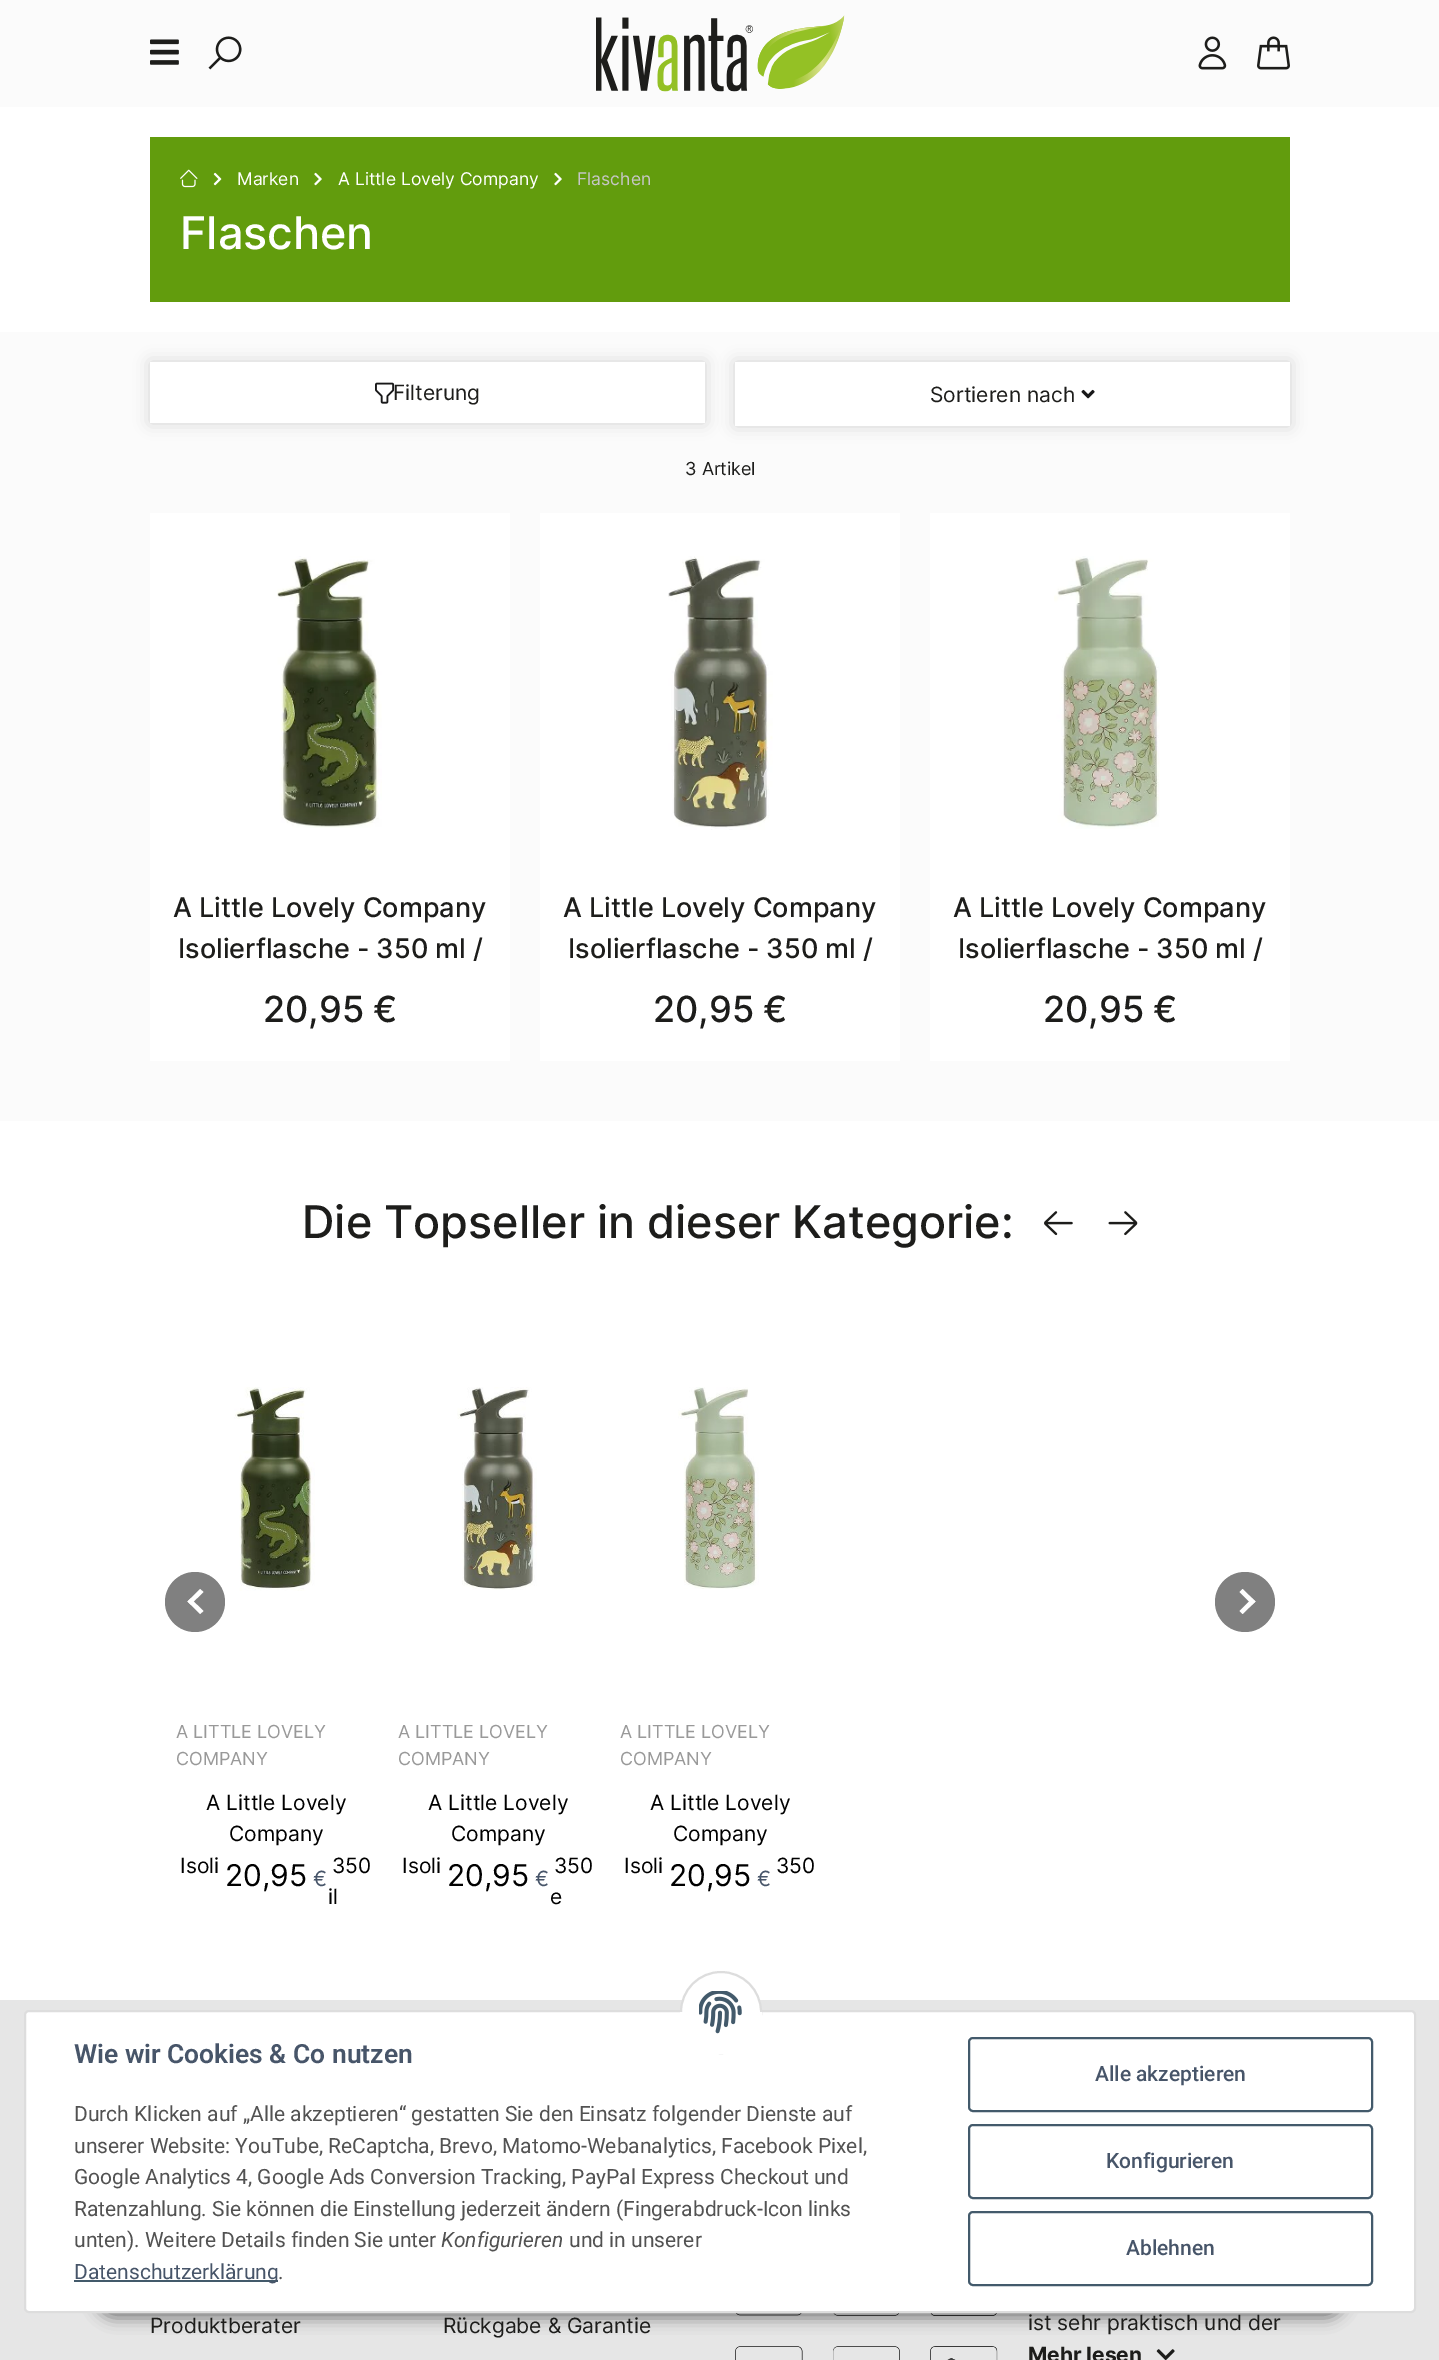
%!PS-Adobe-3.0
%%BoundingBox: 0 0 1439 2360
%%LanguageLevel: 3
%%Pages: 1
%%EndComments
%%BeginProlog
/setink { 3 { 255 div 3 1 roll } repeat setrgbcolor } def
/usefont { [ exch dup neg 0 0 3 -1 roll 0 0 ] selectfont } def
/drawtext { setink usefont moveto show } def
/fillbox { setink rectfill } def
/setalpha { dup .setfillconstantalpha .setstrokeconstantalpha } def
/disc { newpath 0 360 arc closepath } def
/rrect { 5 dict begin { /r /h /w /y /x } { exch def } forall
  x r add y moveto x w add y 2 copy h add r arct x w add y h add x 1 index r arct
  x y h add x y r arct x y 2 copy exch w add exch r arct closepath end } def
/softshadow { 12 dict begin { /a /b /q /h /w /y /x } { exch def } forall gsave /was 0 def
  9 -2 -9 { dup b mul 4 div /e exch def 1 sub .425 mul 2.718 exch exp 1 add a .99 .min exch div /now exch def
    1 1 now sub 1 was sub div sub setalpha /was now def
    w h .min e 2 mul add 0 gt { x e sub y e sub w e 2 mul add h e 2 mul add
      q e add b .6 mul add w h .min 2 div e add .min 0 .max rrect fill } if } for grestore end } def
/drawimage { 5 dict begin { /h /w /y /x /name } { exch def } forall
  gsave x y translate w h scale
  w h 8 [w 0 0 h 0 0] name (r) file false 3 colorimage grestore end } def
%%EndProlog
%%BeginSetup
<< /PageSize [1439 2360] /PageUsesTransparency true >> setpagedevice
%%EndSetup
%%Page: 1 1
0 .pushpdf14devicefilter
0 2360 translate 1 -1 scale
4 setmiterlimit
0 0 1439 2360 255 255 255 fillbox
0 0 1439 107 251 251 251 fillbox
(assets/img1.rgb) 150 39 29 26 drawimage
(assets/img2.rgb) 208 36 34 34 drawimage
(assets/img3.rgb) 596 15 249 77 drawimage
(assets/img4.rgb) 1198 36 29 34 drawimage
(assets/img5.rgb) 1257 36 33 34 drawimage
150 137 1140 165 98 156 13 fillbox
(assets/img6.rgb) 180 169 18 19 drawimage
(assets/img7.rgb) 213 172 9 14 drawimage
(Marken) 237 185 /Inter-Regular 17.5 255 255 255 drawtext
(assets/img8.rgb) 314 172 8 14 drawimage
(A Little Lovely Company) 338 185 /Inter-Regular 17.5 255 255 255 drawtext
(assets/img8.rgb) 554 172 8 14 drawimage
(Flaschen) 577 185 /Inter-Regular 17.5 198 198 198 drawtext
(Flaschen) 180 249 /Inter-Medium 45 255 255 255 drawtext
0 332 1439 789 251 251 251 fillbox
0 0 0 setink
150 362 555 61 0 8 0.16 softshadow
150 362 555 61 255 255 255 fillbox
(assets/img9.rgb) 375 382 20 22 drawimage
(Filterung) 393 400 /Inter-Regular 21 29 29 27 drawtext
0 0 0 setink
735 362 555 64 0 8 0.16 softshadow
735 362 555 64 255 255 255 fillbox
(Sortieren nach) 930 402 /Inter-Regular 21 29 29 27 drawtext
(assets/img10.rgb) 1081 389 14 10 drawimage
(3 Artikel) 685 475 /Inter-Regular 18 29 29 27 drawtext
150 513 360 548 255 255 255 fillbox
(assets/img11.rgb) 277 556 105 272 drawimage
(A Little Lovely Company) 173 917 /Inter-Medium 27 29 29 27 drawtext
(Isolierflasche - 350 ml /) 178 958 /Inter-Medium 27 29 29 27 drawtext
(20,95 €) 263 1022 /Inter-Medium 36 29 29 27 drawtext
540 513 360 548 255 255 255 fillbox
(assets/img12.rgb) 668 556 105 274 drawimage
(A Little Lovely Company) 563 917 /Inter-Medium 27 29 29 27 drawtext
(Isolierflasche - 350 ml /) 568 958 /Inter-Medium 27 29 29 27 drawtext
(20,95 €) 653 1022 /Inter-Medium 36 29 29 27 drawtext
930 513 360 548 255 255 255 fillbox
(assets/img13.rgb) 1054 556 106 273 drawimage
(A Little Lovely Company) 953 917 /Inter-Medium 27 29 29 27 drawtext
(Isolierflasche - 350 ml /) 958 958 /Inter-Medium 27 29 29 27 drawtext
(20,95 €) 1043 1022 /Inter-Medium 36 29 29 27 drawtext
(Die Topseller in dieser Kategorie:) 302 1238 /Inter-Medium 45 29 29 27 drawtext
(assets/img14.rgb) 1044 1211 29 25 drawimage
(assets/img15.rgb) 1108 1211 30 25 drawimage
128 128 128 setink
195 1602 30 disc fill
255 255 255 setink
203.5 1611 moveto 200 1614 lineto 187.5 1601.5 lineto 190.5 1598.5 lineto closepath fill
203.5 1592 moveto 190.5 1604.5 lineto 187.5 1601.5 lineto 200 1589 lineto closepath fill
128 128 128 setink
1245 1602 30 disc fill
255 255 255 setink
1239.5 1592 moveto 1242.5 1589 lineto 1255.5 1601.5 lineto 1252 1604.5 lineto closepath fill
1239.5 1611 moveto 1252 1598.5 lineto 1255.5 1601.5 lineto 1242.5 1614 lineto closepath fill
(assets/img16.rgb) 234 1387 81 204 drawimage
(A LITTLE LOVELY) 176 1738 /Inter-Regular 18 153 153 153 drawtext
(COMPANY) 176 1765 /Inter-Regular 18 153 153 153 drawtext
(A Little Lovely) 206 1810 /Inter-Regular 21 0 0 0 drawtext
(Company) 229 1841 /Inter-Regular 21 0 0 0 drawtext
(Isoli) 180 1873 /Inter-Regular 21 0 0 0 drawtext
(350) 332 1873 /Inter-Regular 21 0 0 0 drawtext
(il) 328 1904 /Inter-Regular 21 0 0 0 drawtext
(20,95) 225 1886 /Inter-Regular 30 0 0 0 drawtext
(€) 313 1886 /Inter-Regular 21 71 85 105 drawtext
(assets/img17.rgb) 457 1387 80 203 drawimage
(A LITTLE LOVELY) 398 1738 /Inter-Regular 18 153 153 153 drawtext
(COMPANY) 398 1765 /Inter-Regular 18 153 153 153 drawtext
(A Little Lovely) 428 1810 /Inter-Regular 21 0 0 0 drawtext
(Company) 451 1841 /Inter-Regular 21 0 0 0 drawtext
(Isoli) 402 1873 /Inter-Regular 21 0 0 0 drawtext
(350) 554 1873 /Inter-Regular 21 0 0 0 drawtext
(e) 550 1904 /Inter-Regular 21 0 0 0 drawtext
(20,95) 447 1886 /Inter-Regular 30 0 0 0 drawtext
(€) 535 1886 /Inter-Regular 21 71 85 105 drawtext
(assets/img18.rgb) 678 1387 81 202 drawimage
(A LITTLE LOVELY) 620 1738 /Inter-Regular 18 153 153 153 drawtext
(COMPANY) 620 1765 /Inter-Regular 18 153 153 153 drawtext
(A Little Lovely) 650 1810 /Inter-Regular 21 0 0 0 drawtext
(Company) 673 1841 /Inter-Regular 21 0 0 0 drawtext
(Isoli) 624 1873 /Inter-Regular 21 0 0 0 drawtext
(350) 776 1873 /Inter-Regular 21 0 0 0 drawtext
(20,95) 669 1886 /Inter-Regular 30 0 0 0 drawtext
(€) 757 1886 /Inter-Regular 21 71 85 105 drawtext
0 2000 1439 360 230 230 230 fillbox
(assets/img20.rgb) 736 2313 66 3 drawimage
(assets/img21.rgb) 833 2313 67 3 drawimage
(assets/img22.rgb) 930 2313 67 3 drawimage
0 0 0 setink
95 2270 1251 48 24 7.5 0.45 softshadow
255 255 255 setink
25 2011 1390 301 4 rrect gsave fill grestore
221 221 221 setink
2 setlinewidth
stroke
255 255 255 setink
681 1972 80 81 40 rrect gsave fill grestore
221 221 221 setink
stroke
680 2012 82 42 255 255 255 fillbox
(assets/img19.rgb) 699 1991 43 43 drawimage
(Wie wir Cookies & Co nutzen) 74 2063 /Roboto-SemiBold 26.4 71 85 105 drawtext
(Durch Klicken auf „Alle akzeptieren“ gestatten Sie den Einsatz folgender Dienste auf) 74 2121 /Roboto-Regular 21 82 82 82 drawtext
(unserer Website: YouTube, ReCaptcha, Brevo, Matomo-Webanalytics, Facebook Pixel,) 74 2153 /Roboto-Regular 21 82 82 82 drawtext
(Google Analytics 4, Google Ads Conversion Tracking, PayPal Express Checkout und) 74 2184 /Roboto-Regular 21 82 82 82 drawtext
(Ratenzahlung. Sie können die Einstellung jederzeit ändern \(Fingerabdruck-Icon links) 74 2216 /Roboto-Regular 21 82 82 82 drawtext
(unten\). Weitere Details finden Sie unter) 74 2247 /Roboto-Regular 21 82 82 82 drawtext
(Konfigurieren) 441 2247 /Roboto-Italic 21 82 82 82 drawtext
(und in unserer) 569 2247 /Roboto-Regular 21 82 82 82 drawtext
74 2280 204 2 67 90 107 fillbox
(Datenschutzerklärung) 74 2279 /Roboto-Regular 21 71 85 105 drawtext
(.) 278 2279 /Roboto-Regular 21 82 82 82 drawtext
67 90 107 setink
969 2038 403 73 4 rrect stroke
(Alle akzeptieren) 1095 2081 /Roboto-Medium 21 71 85 105 drawtext
67 90 107 setink
969 2125 403 73 4 rrect stroke
(Konfigurieren) 1106 2168 /Roboto-Medium 21 71 85 105 drawtext
67 90 107 setink
969 2212 403 73 4 rrect stroke
(Ablehnen) 1126 2255 /Roboto-Medium 21 71 85 105 drawtext
(Produktberater) 150 2333 /Inter-Regular 21 29 29 27 drawtext
(Rückgabe & Garantie) 443 2333 /Inter-Regular 21 29 29 27 drawtext
(assets/img23.rgb) 735 2346 68 14 drawimage
(assets/img24.rgb) 833 2346 67 14 drawimage
(assets/img25.rgb) 930 2346 68 14 drawimage
(ist sehr praktisch und der) 1028 2330 /Inter-Regular 21 29 29 27 drawtext
(Mehr lesen) 1028 2362 /Inter-Bold 21 29 29 27 drawtext
(assets/img26.rgb) 1156 2349 19 11 drawimage
.poppdf14devicefilter showpage
%%EOF
